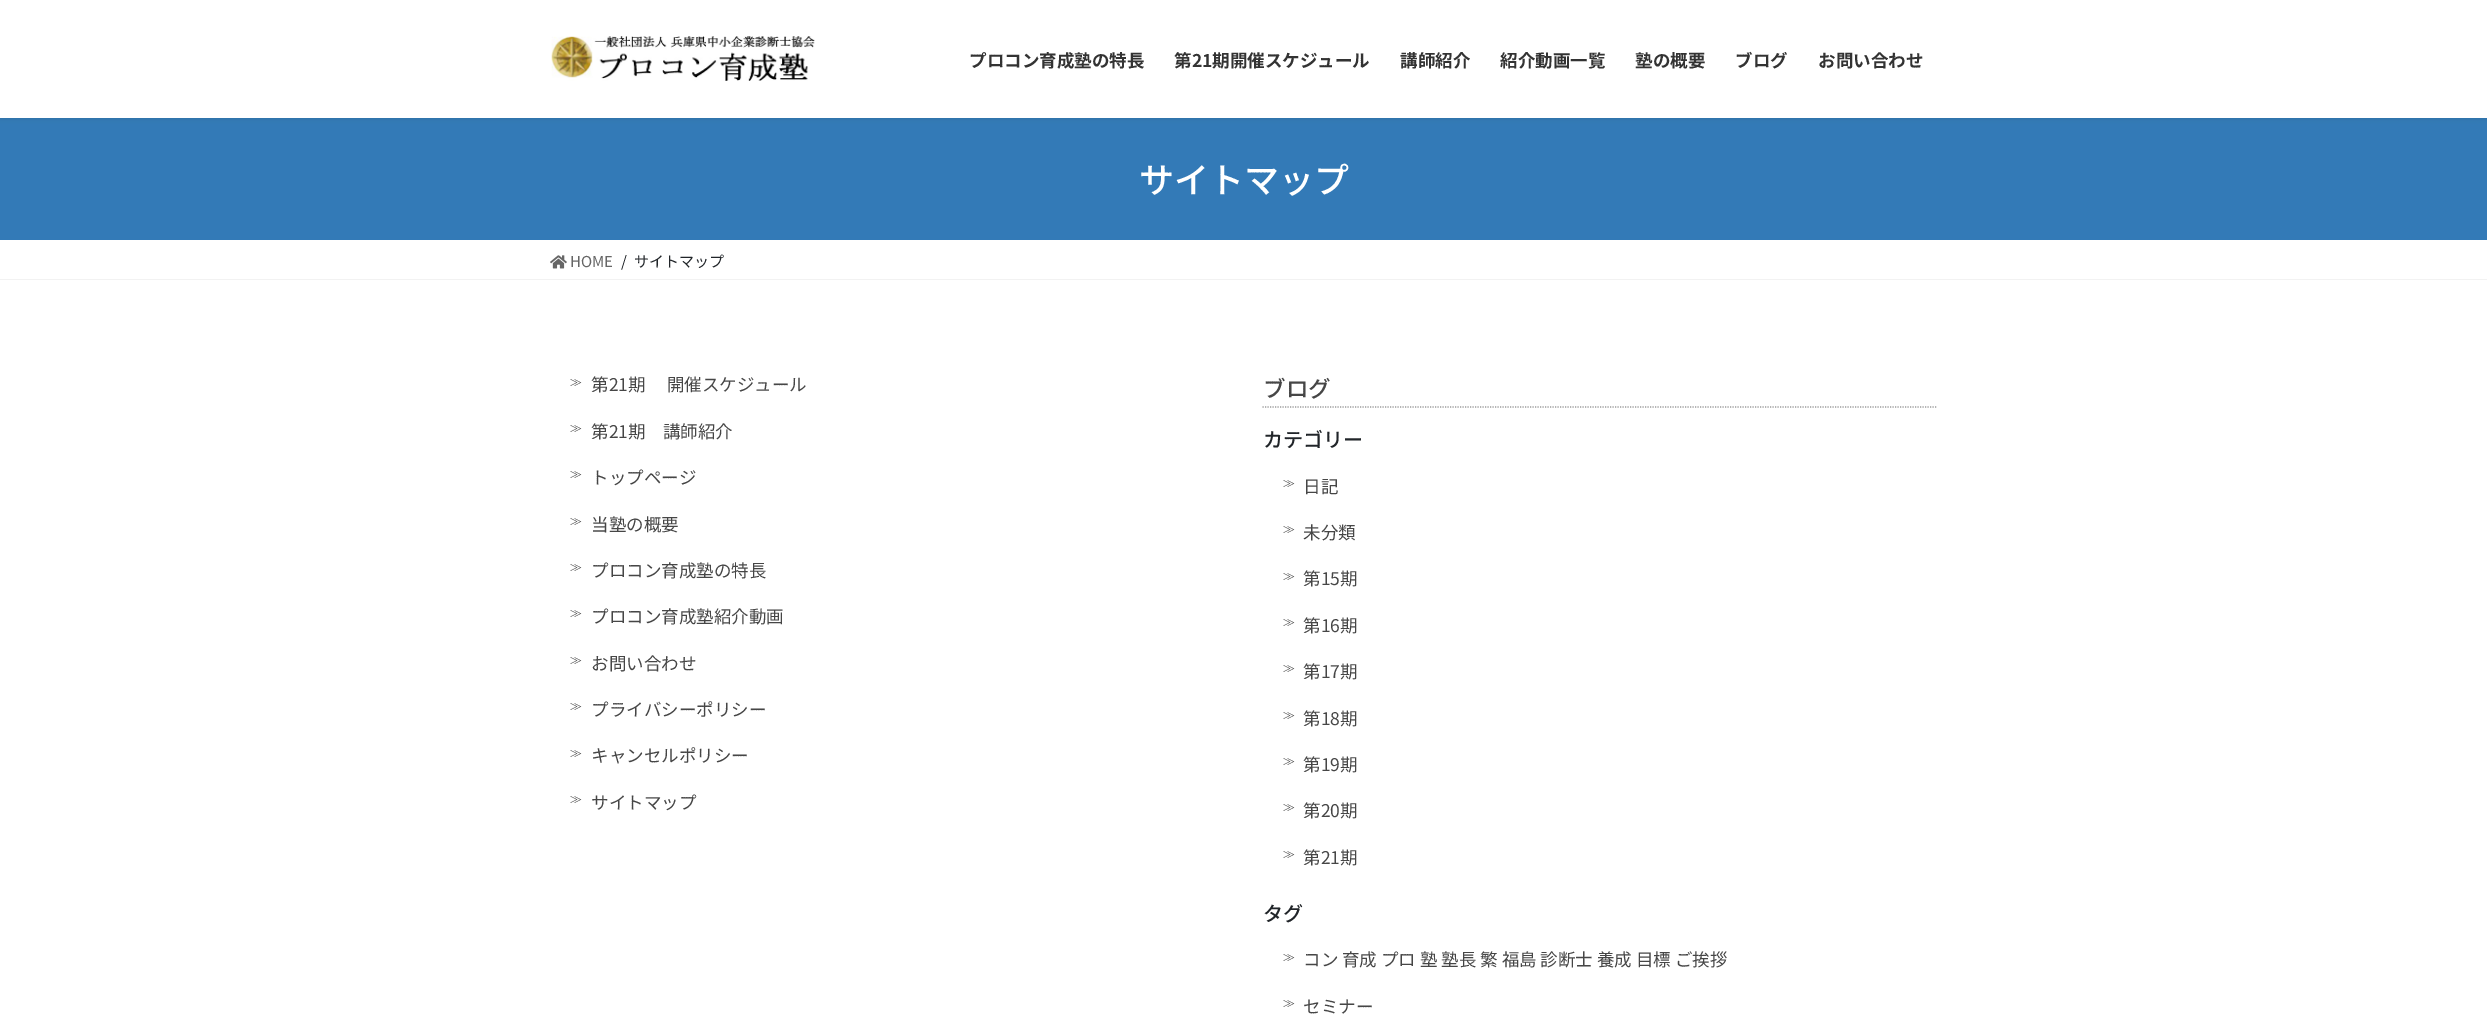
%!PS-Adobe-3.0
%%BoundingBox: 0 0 2487 1017
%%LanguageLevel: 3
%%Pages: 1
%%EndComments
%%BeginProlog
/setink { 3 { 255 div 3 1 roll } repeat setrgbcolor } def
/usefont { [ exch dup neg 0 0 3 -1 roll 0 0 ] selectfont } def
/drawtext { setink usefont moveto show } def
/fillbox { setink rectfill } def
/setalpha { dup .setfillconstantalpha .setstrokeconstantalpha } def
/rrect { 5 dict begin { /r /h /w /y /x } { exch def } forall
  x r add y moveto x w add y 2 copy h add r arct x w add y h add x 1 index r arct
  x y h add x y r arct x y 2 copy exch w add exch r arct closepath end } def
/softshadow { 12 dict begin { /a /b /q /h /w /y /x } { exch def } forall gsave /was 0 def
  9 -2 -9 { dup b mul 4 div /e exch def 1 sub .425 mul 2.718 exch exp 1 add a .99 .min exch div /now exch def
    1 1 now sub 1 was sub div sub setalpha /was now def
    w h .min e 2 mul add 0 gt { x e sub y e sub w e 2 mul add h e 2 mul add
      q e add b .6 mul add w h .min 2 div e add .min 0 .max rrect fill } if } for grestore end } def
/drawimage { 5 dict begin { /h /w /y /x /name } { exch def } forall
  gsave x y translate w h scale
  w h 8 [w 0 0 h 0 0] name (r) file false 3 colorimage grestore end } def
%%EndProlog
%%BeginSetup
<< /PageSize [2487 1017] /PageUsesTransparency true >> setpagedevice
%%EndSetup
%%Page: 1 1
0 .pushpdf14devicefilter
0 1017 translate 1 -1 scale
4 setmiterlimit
0 0 2487 1017 255 255 255 fillbox
0 118 2487 122 51 122 183 fillbox
0 0 0 setink
0 1 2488 118 0 2 0.1 softshadow
0 0 2487 118 255 255 255 fillbox
(assets/img1.rgb) 551 36 264 45 drawimage
(プロコン育成塾の特長) 969 67 /NotoSansJP-Bold 17.5 51 51 51 drawtext
(第21期開催スケジュール) 1174 67 /NotoSansJP-Bold 17.5 51 51 51 drawtext
(講師紹介) 1400 67 /NotoSansJP-Bold 17.5 51 51 51 drawtext
(紹介動画一覧) 1500 67 /NotoSansJP-Bold 17.5 51 51 51 drawtext
(塾の概要) 1635 67 /NotoSansJP-Bold 17.5 51 51 51 drawtext
(ブログ) 1735 67 /NotoSansJP-Bold 17.5 51 51 51 drawtext
(お問い合わせ) 1818 67 /NotoSansJP-Bold 17.5 51 51 51 drawtext
(サイトマップ) 1139 193 /NotoSansJP-Medium 35 255 255 255 drawtext
0 279 2487 1 242 242 242 fillbox
(assets/img2.rgb) 550 255 17 14 drawimage
(HOME) 570 267 /NotoSansJP-Regular 15 102 102 102 drawtext
(/) 621 267 /NotoSansJP-Regular 15 33 37 41 drawtext
(サイトマップ) 634 267 /NotoSansJP-Regular 15 33 37 41 drawtext
(≫) 570 386 /WenQuanYiZenHei-Medium 12 70 70 70 drawtext
(第21期　 開催スケジュール) 591 391 /NotoSansJP-Regular 17.5 70 70 70 drawtext
(≫) 570 432 /WenQuanYiZenHei-Medium 12 70 70 70 drawtext
(第21期　講師紹介) 591 438 /NotoSansJP-Regular 17.5 70 70 70 drawtext
(≫) 570 478 /WenQuanYiZenHei-Medium 12 70 70 70 drawtext
(トップページ) 591 484 /NotoSansJP-Regular 17.5 70 70 70 drawtext
(≫) 570 525 /WenQuanYiZenHei-Medium 12 70 70 70 drawtext
(当塾の概要) 591 531 /NotoSansJP-Regular 17.5 70 70 70 drawtext
(≫) 570 571 /WenQuanYiZenHei-Medium 12 70 70 70 drawtext
(プロコン育成塾の特長) 591 577 /NotoSansJP-Regular 17.5 70 70 70 drawtext
(≫) 570 617 /WenQuanYiZenHei-Medium 12 70 70 70 drawtext
(プロコン育成塾紹介動画) 591 623 /NotoSansJP-Regular 17.5 70 70 70 drawtext
(≫) 570 664 /WenQuanYiZenHei-Medium 12 70 70 70 drawtext
(お問い合わせ) 591 670 /NotoSansJP-Regular 17.5 70 70 70 drawtext
(≫) 570 710 /WenQuanYiZenHei-Medium 12 70 70 70 drawtext
(プライバシーポリシー) 591 716 /NotoSansJP-Regular 17.5 70 70 70 drawtext
(≫) 570 757 /WenQuanYiZenHei-Medium 12 70 70 70 drawtext
(キャンセルポリシー) 591 762 /NotoSansJP-Regular 17.5 70 70 70 drawtext
(≫) 570 803 /WenQuanYiZenHei-Medium 12 70 70 70 drawtext
(サイトマップ) 591 809 /NotoSansJP-Regular 17.5 70 70 70 drawtext
153 153 153 setink
1.2 setlinewidth
[1.25 1.25] 0 setdash
1262.5 407 moveto 1937.5 407 lineto stroke
(ブログ) 1263 397 /NotoSansJP-Medium 22.5 70 70 70 drawtext
(カテゴリー) 1263 447 /NotoSansJP-Medium 20 33 37 41 drawtext
(≫) 1283 487 /WenQuanYiZenHei-Medium 12 70 70 70 drawtext
(日記) 1303 493 /NotoSansJP-Regular 17.5 70 70 70 drawtext
(≫) 1283 533 /WenQuanYiZenHei-Medium 12 70 70 70 drawtext
(未分類) 1303 539 /NotoSansJP-Regular 17.5 70 70 70 drawtext
(≫) 1283 580 /WenQuanYiZenHei-Medium 12 70 70 70 drawtext
(第15期) 1303 585 /NotoSansJP-Regular 17.5 70 70 70 drawtext
(≫) 1283 626 /WenQuanYiZenHei-Medium 12 70 70 70 drawtext
(第16期) 1303 632 /NotoSansJP-Regular 17.5 70 70 70 drawtext
(≫) 1283 672 /WenQuanYiZenHei-Medium 12 70 70 70 drawtext
(第17期) 1303 678 /NotoSansJP-Regular 17.5 70 70 70 drawtext
(≫) 1283 719 /WenQuanYiZenHei-Medium 12 70 70 70 drawtext
(第18期) 1303 725 /NotoSansJP-Regular 17.5 70 70 70 drawtext
(≫) 1283 765 /WenQuanYiZenHei-Medium 12 70 70 70 drawtext
(第19期) 1303 771 /NotoSansJP-Regular 17.5 70 70 70 drawtext
(≫) 1283 811 /WenQuanYiZenHei-Medium 12 70 70 70 drawtext
(第20期) 1303 817 /NotoSansJP-Regular 17.5 70 70 70 drawtext
(≫) 1283 858 /WenQuanYiZenHei-Medium 12 70 70 70 drawtext
(第21期) 1303 864 /NotoSansJP-Regular 17.5 70 70 70 drawtext
(タグ) 1263 921 /NotoSansJP-Medium 20 33 37 41 drawtext
(≫) 1283 961 /WenQuanYiZenHei-Medium 12 70 70 70 drawtext
(コン 育成 プロ 塾 塾長 繁 福島 診断士 養成 目標 ご挨拶) 1303 966 /NotoSansJP-Regular 17.5 70 70 70 drawtext
(≫) 1283 1007 /WenQuanYiZenHei-Medium 12 70 70 70 drawtext
(セミナー) 1303 1013 /NotoSansJP-Regular 17.5 70 70 70 drawtext
.poppdf14devicefilter showpage
%%EOF
